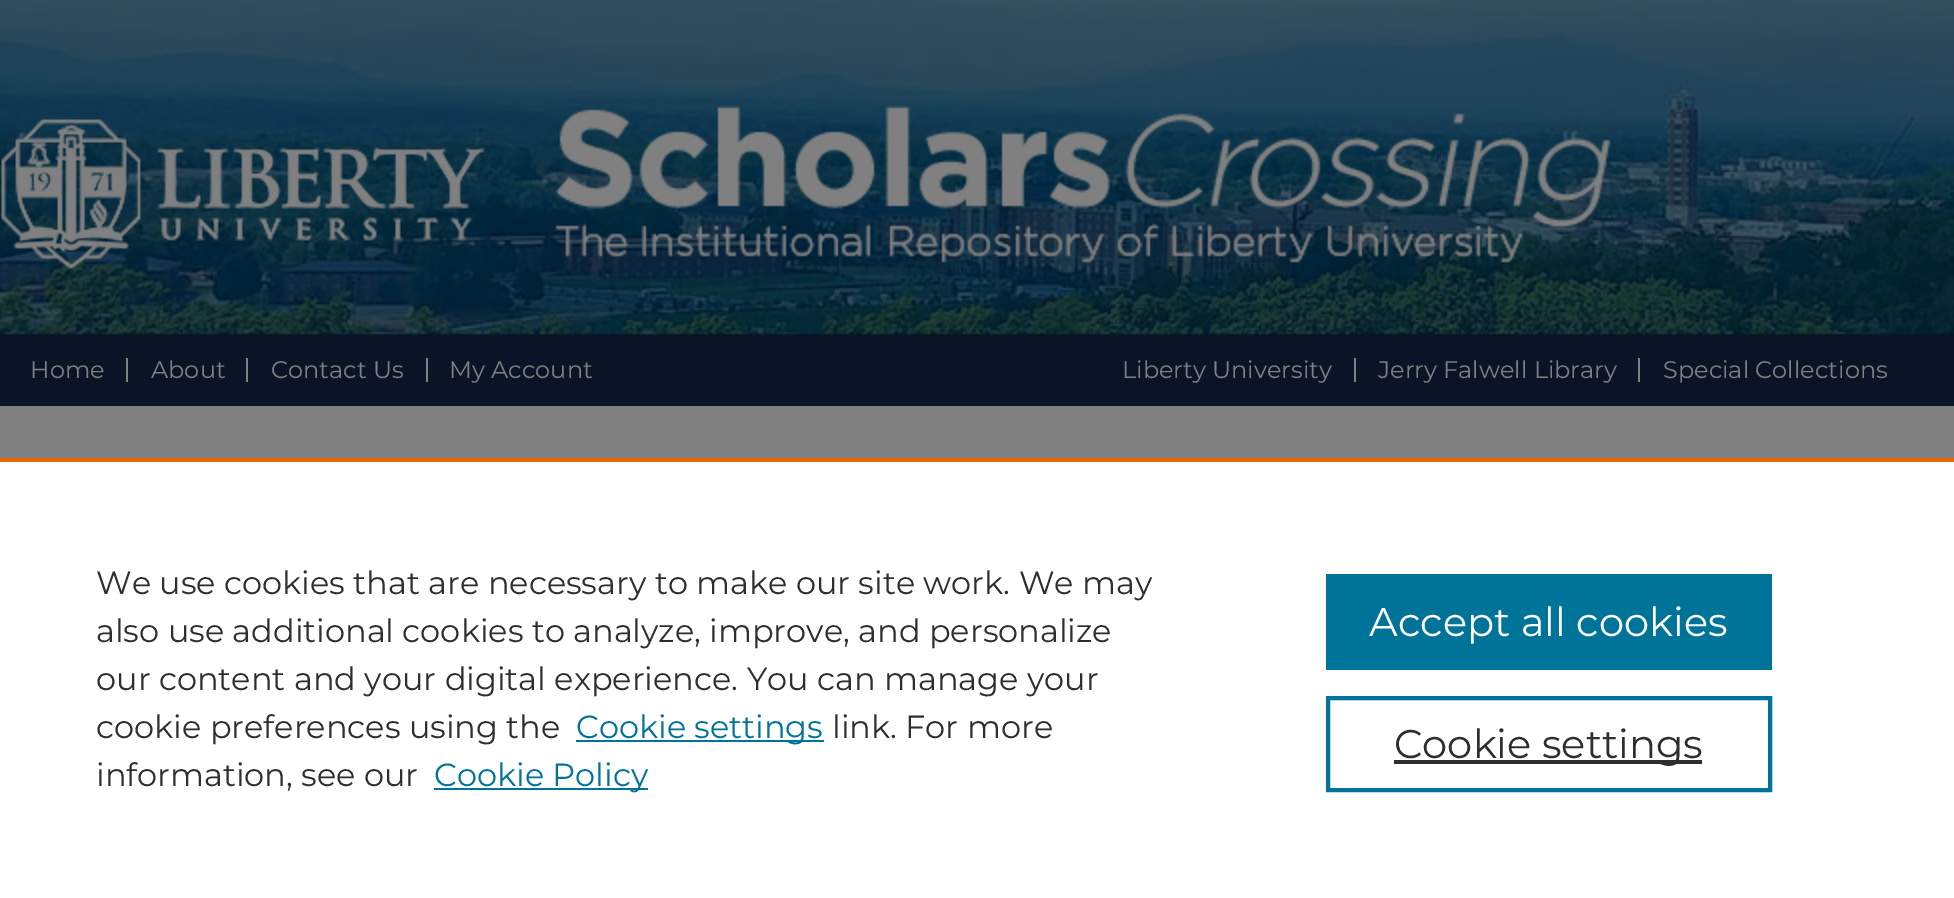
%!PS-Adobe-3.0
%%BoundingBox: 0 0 1954 898
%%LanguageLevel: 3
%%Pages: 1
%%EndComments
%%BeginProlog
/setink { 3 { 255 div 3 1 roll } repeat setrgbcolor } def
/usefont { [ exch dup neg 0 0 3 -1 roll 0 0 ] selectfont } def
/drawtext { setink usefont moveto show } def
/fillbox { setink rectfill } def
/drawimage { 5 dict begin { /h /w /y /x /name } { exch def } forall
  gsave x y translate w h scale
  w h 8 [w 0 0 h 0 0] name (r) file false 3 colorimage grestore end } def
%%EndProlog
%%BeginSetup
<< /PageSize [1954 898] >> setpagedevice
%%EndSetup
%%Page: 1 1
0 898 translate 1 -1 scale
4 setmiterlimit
0 0 1954 898 128 128 128 fillbox
(assets/img1.rgb) 0 0 1954 406 drawimage
(assets/img2.rgb) 1 105 1610 164 drawimage
(assets/img3.rgb) 1 119 484 150 drawimage
126 358 2 24 128 128 128 fillbox
(Home) 30 378 /Montserrat-Regular 24 128 128 128 drawtext
246 358 2 24 128 128 128 fillbox
(About) 151 378 /Montserrat-Regular 24 128 128 128 drawtext
426 358 2 24 128 128 128 fillbox
(Contact Us) 271 378 /Montserrat-Regular 24 128 128 128 drawtext
(My Account) 449 378 /Montserrat-Regular 24 128 128 128 drawtext
1354 358 2 24 128 128 128 fillbox
(Liberty University) 1122 378 /Montserrat-Regular 24 128 128 128 drawtext
1638 358 2 24 128 128 128 fillbox
(Jerry Falwell Library) 1378 378 /Montserrat-Regular 24 128 128 128 drawtext
(Special Collections) 1663 378 /Montserrat-Regular 24 128 128 128 drawtext
0 462 1954 436 255 255 255 fillbox
0 458 1954 4 235 101 0 fillbox
(We use cookies that are necessary to make our site work. We may) 96 594 /Montserrat-Regular 32 46 46 46 drawtext
(also use additional cookies to analyze, improve, and personalize) 96 642 /Montserrat-Regular 32 46 46 46 drawtext
(our content and your digital experience. You can manage your) 96 690 /Montserrat-Regular 32 46 46 46 drawtext
(cookie preferences using the) 96 738 /Montserrat-Regular 32 46 46 46 drawtext
576 740 248 2 0 115 152 fillbox
(Cookie settings) 576 738 /Montserrat-Regular 32 0 115 152 drawtext
(link. For more) 832 738 /Montserrat-Regular 32 46 46 46 drawtext
(information, see our) 96 786 /Montserrat-Regular 32 46 46 46 drawtext
434 788 214 2 0 115 152 fillbox
(Cookie Policy) 434 786 /Montserrat-Regular 32 0 115 152 drawtext
1326 574 446 96 0 115 152 fillbox
(Accept all cookies) 1369 636 /Montserrat-Regular 40 255 255 255 drawtext
0 115 152 setink
4 setlinewidth
1328 698 442 92 rectstroke
1394 760 308 4 46 46 46 fillbox
(Cookie settings) 1394 758 /Montserrat-Regular 40 46 46 46 drawtext
showpage
%%EOF
